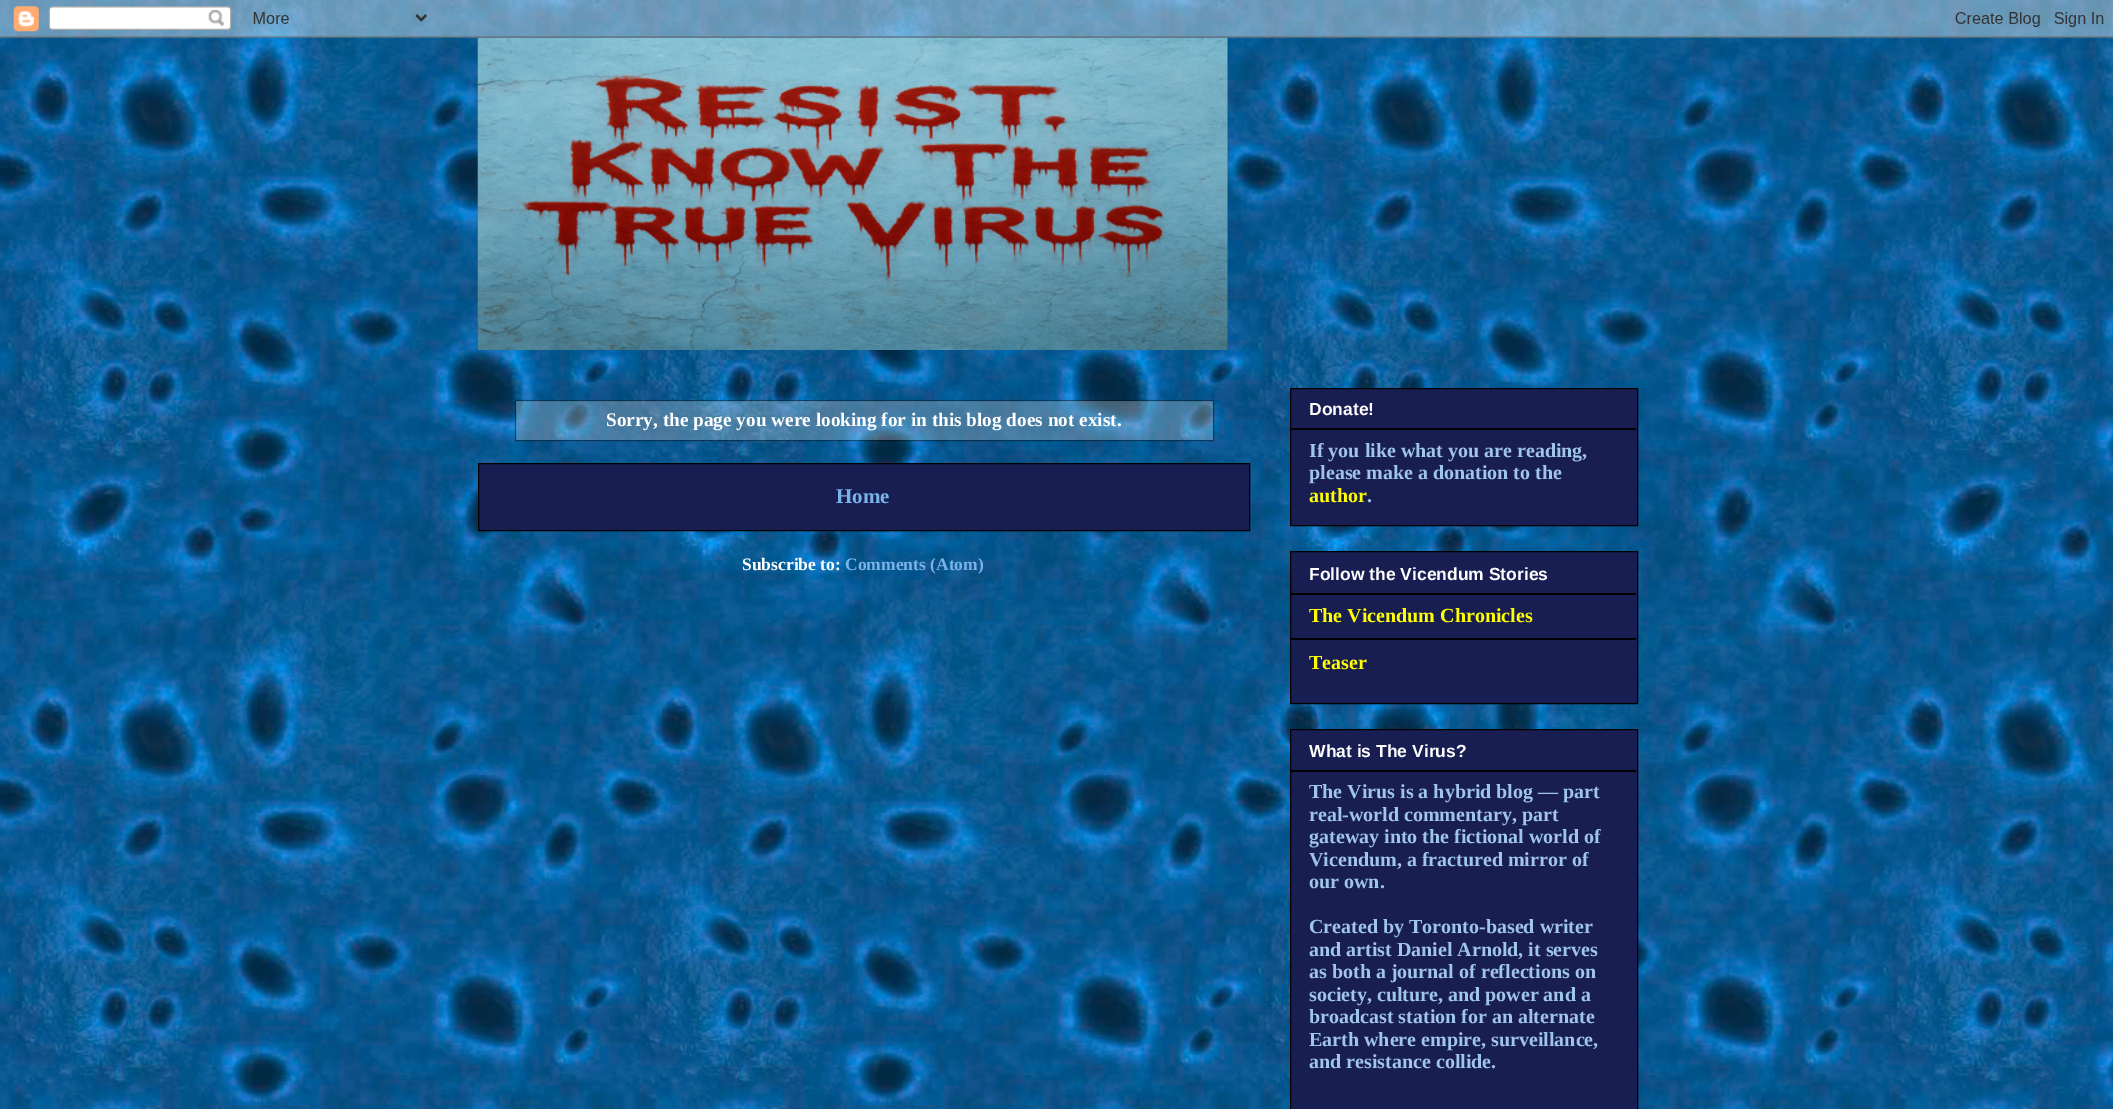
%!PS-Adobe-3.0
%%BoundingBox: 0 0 2113 1109
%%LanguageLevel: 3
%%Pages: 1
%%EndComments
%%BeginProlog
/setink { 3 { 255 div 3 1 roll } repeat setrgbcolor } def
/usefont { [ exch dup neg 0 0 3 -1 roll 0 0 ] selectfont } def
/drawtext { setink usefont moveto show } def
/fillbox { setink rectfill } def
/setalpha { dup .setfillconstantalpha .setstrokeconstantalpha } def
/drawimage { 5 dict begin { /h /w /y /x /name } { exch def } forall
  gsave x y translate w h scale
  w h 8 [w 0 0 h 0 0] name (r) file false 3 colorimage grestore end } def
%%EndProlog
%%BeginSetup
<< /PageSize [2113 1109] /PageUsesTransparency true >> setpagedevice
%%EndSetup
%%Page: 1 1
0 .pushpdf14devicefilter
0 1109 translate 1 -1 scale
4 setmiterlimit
0 0 2113 1109 255 255 255 fillbox
(assets/img1.rgb) 0 0 2113 1109 drawimage
(assets/img3.rgb) 477 37 751 313 drawimage
(assets/img2.rgb) 0 0 2113 38 drawimage
0.4 setalpha
0 0 0 setink
515.5 400.5 698 40 rectstroke
0.32 setalpha
516 401 697 39 204 204 204 fillbox
1 setalpha
(Sorry, the page you were looking for in this blog does not exist.) 606 426 /LiberationSerif-Bold 19.25 255 255 255 drawtext
24 30 82 setink
478.5 463.5 moveto 1249.5 463.5 lineto 1249.5 530.5 lineto 478.5 530.5 lineto closepath gsave fill grestore
0 0 0 setink
stroke
(Home) 836 503 /LiberationSerif-Bold 21 122 179 232 drawtext
(Subscribe to:) 742 570 /LiberationSerif-Bold 17.5 255 255 255 drawtext
(Comments \(Atom\)) 845 570 /LiberationSerif-Bold 17.5 122 179 232 drawtext
24 30 82 setink
1290.5 388.5 moveto 1637.5 388.5 lineto 1637.5 525.5 lineto 1290.5 525.5 lineto closepath gsave fill grestore
0 0 0 setink
stroke
(Donate!) 1309 415 /LiberationSans-Bold 17.5 255 255 255 drawtext
1291 428 345 2 0 0 0 fillbox
(If you like what you are reading,) 1309 457 /LiberationSerif-Bold 20 159 197 232 drawtext
(please make a donation to the) 1309 479 /LiberationSerif-Bold 20 159 197 232 drawtext
(author) 1309 502 /LiberationSerif-Bold 20 255 255 0 drawtext
(.) 1367 502 /LiberationSerif-Bold 20 159 197 232 drawtext
24 30 82 setink
1290.5 551.5 moveto 1637.5 551.5 lineto 1637.5 703.5 lineto 1290.5 703.5 lineto closepath gsave fill grestore
0 0 0 setink
stroke
(Follow the Vicendum Stories) 1309 580 /LiberationSans-Bold 17.5 255 255 255 drawtext
1291 593 345 2 0 0 0 fillbox
1291 638 345 2 0 0 0 fillbox
(The Vicendum Chronicles) 1309 622 /LiberationSerif-Bold 20 255 255 0 drawtext
(Teaser) 1309 669 /LiberationSerif-Bold 20 255 255 0 drawtext
24 30 82 setink
1290.5 729.5 moveto 1637.5 729.5 lineto 1637.5 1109.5 lineto 1290.5 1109.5 lineto closepath gsave fill grestore
0 0 0 setink
stroke
(What is The Virus?) 1309 757 /LiberationSans-Bold 17.5 255 255 255 drawtext
1291 770 345 2 0 0 0 fillbox
(The Virus is a hybrid blog — part) 1309 798 /LiberationSerif-Bold 20 159 197 232 drawtext
(real-world commentary, part) 1309 821 /LiberationSerif-Bold 20 159 197 232 drawtext
(gateway into the fictional world of) 1309 843 /LiberationSerif-Bold 20 159 197 232 drawtext
(Vicendum, a fractured mirror of) 1309 866 /LiberationSerif-Bold 20 159 197 232 drawtext
(our own.) 1309 888 /LiberationSerif-Bold 20 159 197 232 drawtext
(Created by Toronto-based writer) 1309 933 /LiberationSerif-Bold 20 159 197 232 drawtext
(and artist Daniel Arnold, it serves) 1309 956 /LiberationSerif-Bold 20 159 197 232 drawtext
(as both a journal of reflections on) 1309 978 /LiberationSerif-Bold 20 159 197 232 drawtext
(society, culture, and power and a) 1309 1001 /LiberationSerif-Bold 20 159 197 232 drawtext
(broadcast station for an alternate) 1309 1023 /LiberationSerif-Bold 20 159 197 232 drawtext
(Earth where empire, surveillance,) 1309 1046 /LiberationSerif-Bold 20 159 197 232 drawtext
(and resistance collide.) 1309 1068 /LiberationSerif-Bold 20 159 197 232 drawtext
.poppdf14devicefilter showpage
%%EOF
